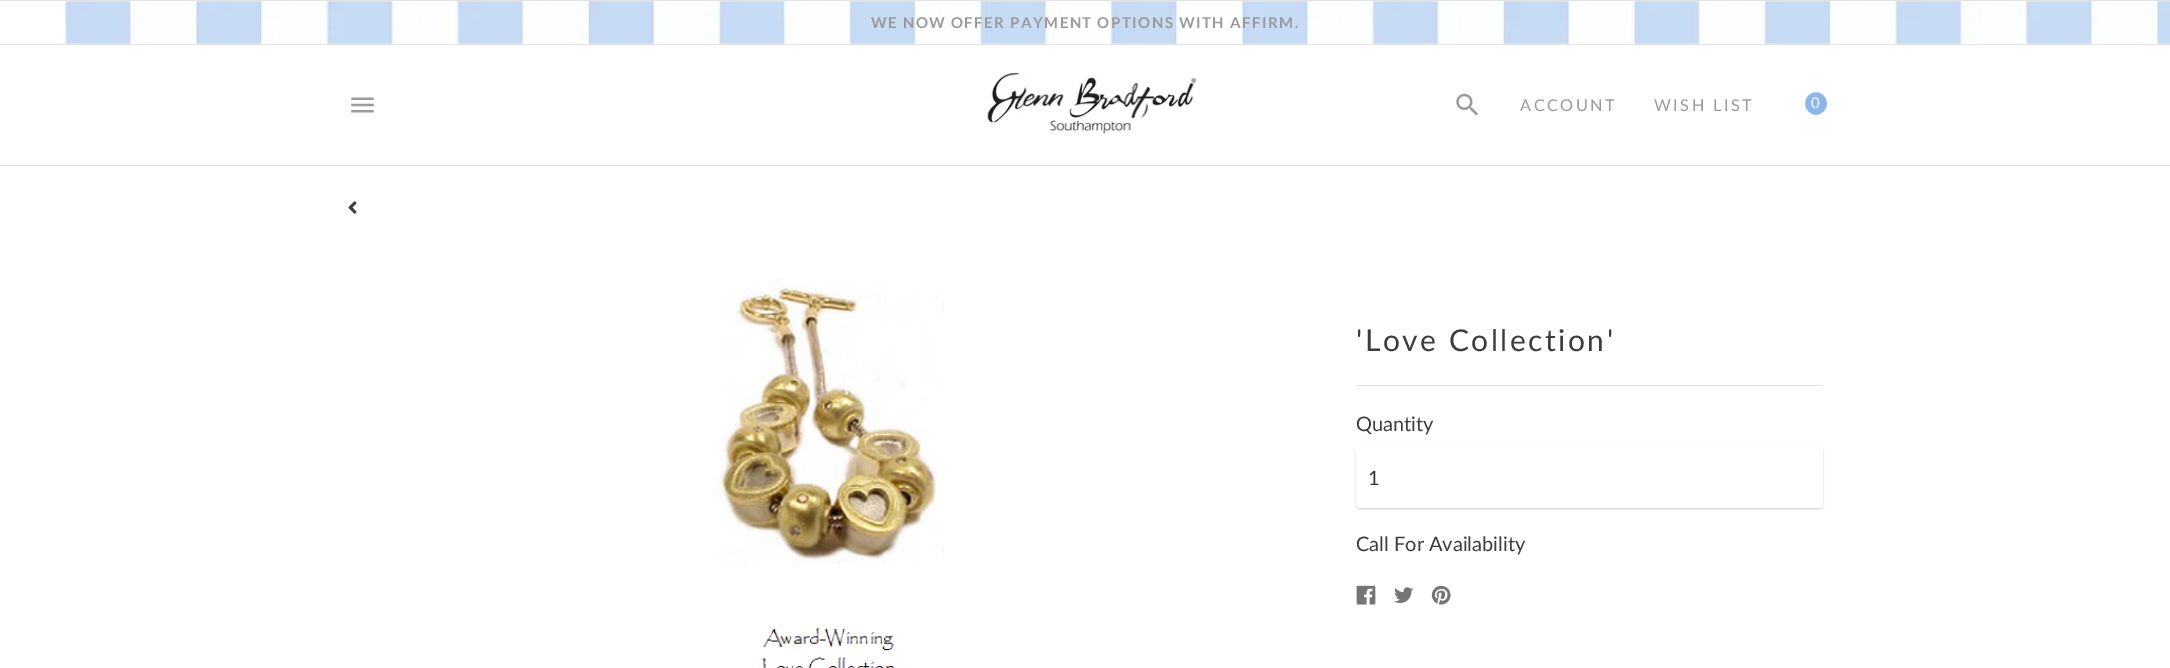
%!PS-Adobe-3.0
%%BoundingBox: 0 0 2170 668
%%LanguageLevel: 3
%%Pages: 1
%%EndComments
%%BeginProlog
/setink { 3 { 255 div 3 1 roll } repeat setrgbcolor } def
/usefont { [ exch dup neg 0 0 3 -1 roll 0 0 ] selectfont } def
/drawtext { setink usefont moveto show } def
/fillbox { setink rectfill } def
/setalpha { dup .setfillconstantalpha .setstrokeconstantalpha } def
/rrect { 5 dict begin { /r /h /w /y /x } { exch def } forall
  x r add y moveto x w add y 2 copy h add r arct x w add y h add x 1 index r arct
  x y h add x y r arct x y 2 copy exch w add exch r arct closepath end } def
/softshadow { 12 dict begin { /a /b /q /h /w /y /x } { exch def } forall gsave /was 0 def
  9 -2 -9 { dup b mul 4 div /e exch def 1 sub .425 mul 2.718 exch exp 1 add a .99 .min exch div /now exch def
    1 1 now sub 1 was sub div sub setalpha /was now def
    w h .min e 2 mul add 0 gt { x e sub y e sub w e 2 mul add h e 2 mul add
      q e add b .6 mul add w h .min 2 div e add .min 0 .max rrect fill } if } for grestore end } def
/drawimage { 5 dict begin { /h /w /y /x /name } { exch def } forall
  gsave x y translate w h scale
  w h 8 [w 0 0 h 0 0] name (r) file false 3 colorimage grestore end } def
%%EndProlog
%%BeginSetup
<< /PageSize [2170 668] /PageUsesTransparency true >> setpagedevice
%%EndSetup
%%Page: 1 1
0 .pushpdf14devicefilter
0 668 translate 1 -1 scale
4 setmiterlimit
0 0 2170 668 255 255 255 fillbox
0 0 2170 1 226 226 226 fillbox
0 44 2170 1 226 226 226 fillbox
(assets/img1.rgb) 63 1 2107 43 drawimage
/Lato-Bold 15 usefont
154 154 154 setink
871 28 moveto 1.5 0 (WE NOW OFFER PAYMENT OPTIONS WITH AFFIRM.) ashow
0 165 2170 1 226 226 226 fillbox
(assets/img2.rgb) 351 97 23 16 drawimage
(assets/img3.rgb) 986 72 211 62 drawimage
(assets/img4.rgb) 1456 93 22 23 drawimage
/Lato-Regular 16.25 usefont
154 154 154 setink
1520 111 moveto 2.5 0 (ACCOUNT) ashow
1654 111 moveto 2.5 0 (WISH LIST) ashow
139 184 232 setink
1804.5 91.5 23 24 11.5 rrect gsave fill grestore
255 255 255 setink
stroke
(0) 1811 108 /Lato-Regular 15 255 255 255 drawtext
(assets/img5.rgb) 348 201 9 13 drawimage
(assets/img6.rgb) 713 279 231 389 drawimage
1356 385 467 1 226 226 226 fillbox
/Lato-Regular 30 usefont
61 61 61 setink
1356 351 moveto 2.5 0 ('Love Collection') ashow
(Quantity) 1356 431 /Lato-Regular 20 61 61 61 drawtext
0 0 0 setink
1356 449 467 60 4 1 0.2 softshadow
255 255 255 setink
1356 448 467 60 4 rrect fill
54 54 54 setink
1368 485 moveto 2.5 0 (1) ashow
(Call For Availability) 1356 551 /Lato-Regular 20 61 61 61 drawtext
(assets/img7.rgb) 1356 585 20 20 drawimage
(assets/img8.rgb) 1394 587 20 16 drawimage
(assets/img9.rgb) 1431 585 20 20 drawimage
.poppdf14devicefilter showpage
%%EOF
